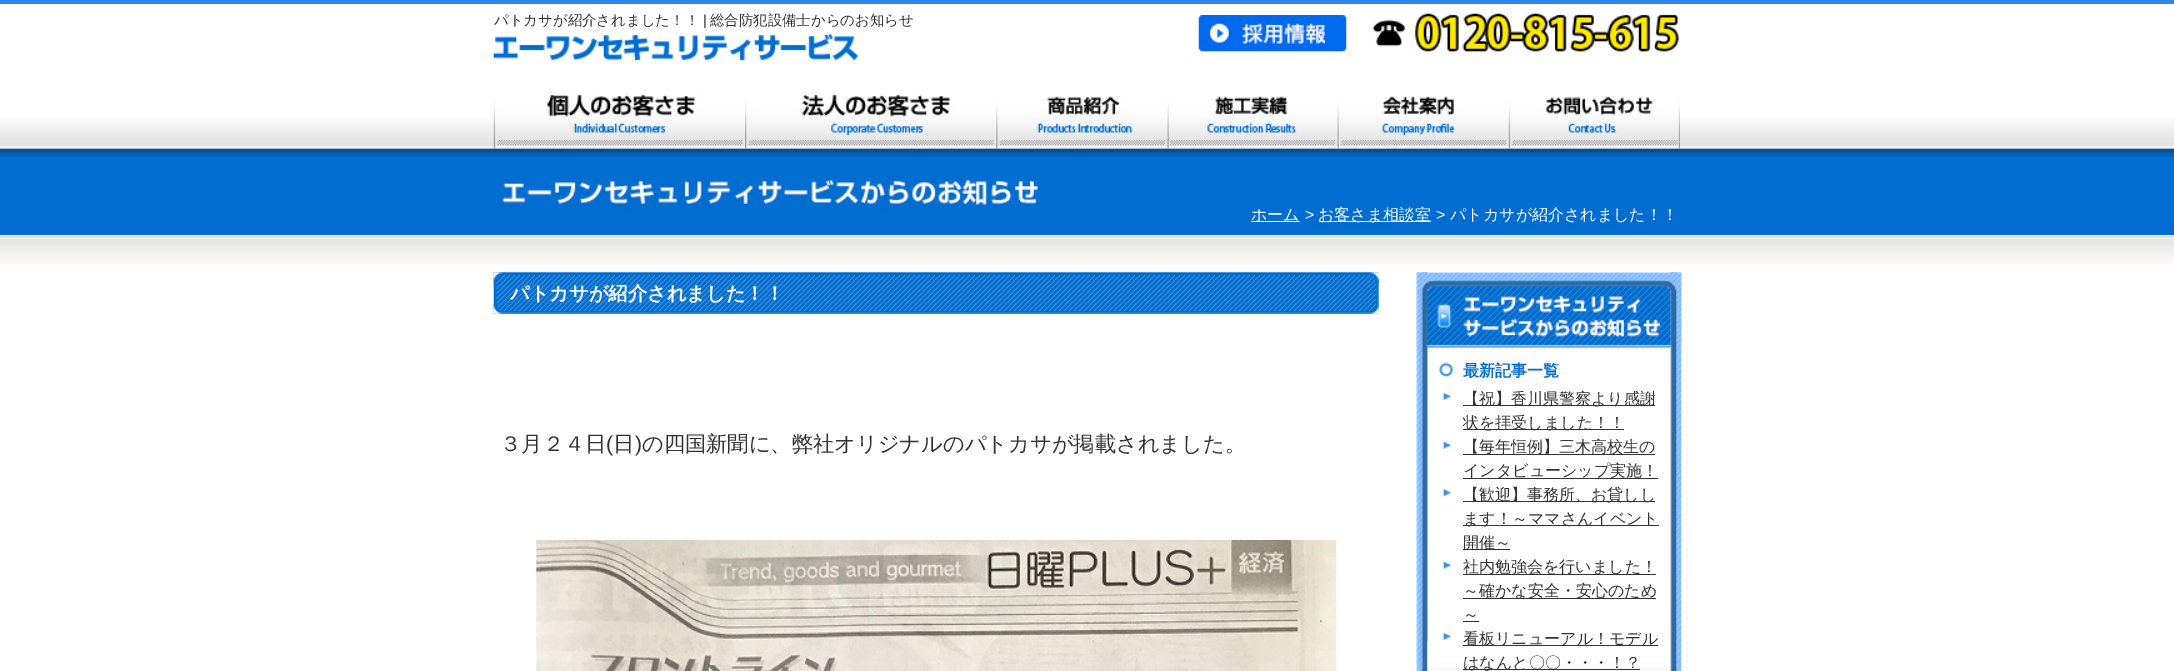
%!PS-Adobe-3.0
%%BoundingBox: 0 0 2174 671
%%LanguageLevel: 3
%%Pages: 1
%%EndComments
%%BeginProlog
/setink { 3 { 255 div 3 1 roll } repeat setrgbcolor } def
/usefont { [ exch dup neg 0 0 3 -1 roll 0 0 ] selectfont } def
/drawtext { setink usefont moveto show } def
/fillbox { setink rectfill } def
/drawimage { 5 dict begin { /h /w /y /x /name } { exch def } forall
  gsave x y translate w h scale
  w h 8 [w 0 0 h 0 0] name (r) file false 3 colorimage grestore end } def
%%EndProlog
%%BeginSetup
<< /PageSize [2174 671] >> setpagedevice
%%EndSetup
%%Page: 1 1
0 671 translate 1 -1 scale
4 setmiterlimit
0 0 2174 671 255 255 255 fillbox
(assets/img1.rgb) 0 117 2174 32 drawimage
0 0 2174 4 46 132 234 fillbox
(パトカサが紹介されました！！) 494 25 /WenQuanYiZenHei-Medium 14.4 51 51 51 drawtext
(|) 703 25 /LiberationSans-Regular 14.4 51 51 51 drawtext
(総合防犯設備士からのお知らせ) 710 25 /WenQuanYiZenHei-Medium 14.4 51 51 51 drawtext
(assets/img2.rgb) 493 33 366 28 drawimage
(assets/img3.rgb) 1198 15 149 37 drawimage
(assets/img4.rgb) 1372 13 307 39 drawimage
(assets/img5.rgb) 493 94 252 55 drawimage
(assets/img6.rgb) 745 94 251 55 drawimage
(assets/img7.rgb) 996 96 171 53 drawimage
(assets/img8.rgb) 1167 96 170 53 drawimage
(assets/img9.rgb) 1337 96 172 53 drawimage
(assets/img10.rgb) 1508 96 172 53 drawimage
0 157 2174 78 1 109 208 fillbox
(assets/img11.rgb) 0 148 2174 9 drawimage
(assets/img12.rgb) 502 179 536 32 drawimage
1251 221 49 1 255 255 255 fillbox
(ホーム) 1251 220 /WenQuanYiZenHei-Medium 16 255 255 255 drawtext
(>) 1305 220 /LiberationSans-Regular 16 255 255 255 drawtext
1319 221 112 1 255 255 255 fillbox
(お客さま相談室) 1318 220 /WenQuanYiZenHei-Medium 16 255 255 255 drawtext
(>) 1436 220 /LiberationSans-Regular 16 255 255 255 drawtext
(パトカサが紹介されました！！) 1450 220 /WenQuanYiZenHei-Medium 16 255 255 255 drawtext
(assets/img13.rgb) 0 236 2174 29 drawimage
(assets/img14.rgb) 493 272 886 42 drawimage
(assets/img15.rgb) 493 272 886 12 drawimage
(assets/img16.rgb) 493 303 886 11 drawimage
(パトカサが紹介されました！！) 510 300 /WenQuanYiZenHei-Bold 19.25 255 255 255 drawtext
(３月２４日) 500 451 /WenQuanYiZenHei-Medium 21.25 51 51 51 drawtext
(\() 606 451 /LiberationSans-Regular 21.25 51 51 51 drawtext
(日) 613 451 /WenQuanYiZenHei-Medium 21.25 51 51 51 drawtext
(\)) 635 451 /LiberationSans-Regular 21.25 51 51 51 drawtext
(の四国新聞に、弊社オリジナルのパトカサが掲載されました。) 642 451 /WenQuanYiZenHei-Medium 21.25 51 51 51 drawtext
(assets/img17.rgb) 536 540 801 131 drawimage
(assets/img18.rgb) 1416 272 266 399 drawimage
(assets/img19.rgb) 1416 272 266 76 drawimage
(assets/img20.rgb) 1427 641 243 30 drawimage
(assets/img21.rgb) 1438 362 16 15 drawimage
(最新記事一覧) 1463 376 /WenQuanYiZenHei-Bold 16 1 109 208 drawtext
(assets/img22.rgb) 1442 392 10 8 drawimage
1463 405 192 1 51 51 51 fillbox
(【祝】香川県警察より感謝) 1463 404 /WenQuanYiZenHei-Medium 16 51 51 51 drawtext
1463 429 161 1 51 51 51 fillbox
(状を拝受しました！！) 1463 428 /WenQuanYiZenHei-Medium 16 51 51 51 drawtext
(assets/img23.rgb) 1442 441 10 8 drawimage
1463 454 192 1 51 51 51 fillbox
(【毎年恒例】三木高校生の) 1463 452 /WenQuanYiZenHei-Medium 16 51 51 51 drawtext
1463 478 195 1 51 51 51 fillbox
(インタビューシップ実施！) 1463 476 /WenQuanYiZenHei-Medium 16 51 51 51 drawtext
(assets/img24.rgb) 1442 488 10 9 drawimage
1463 501 192 1 51 51 51 fillbox
(【歓迎】事務所、お貸しし) 1463 500 /WenQuanYiZenHei-Medium 16 51 51 51 drawtext
1463 525 196 1 51 51 51 fillbox
(ます！～ママさんイベント) 1463 524 /WenQuanYiZenHei-Medium 16 51 51 51 drawtext
1463 549 47 1 51 51 51 fillbox
(開催～) 1463 548 /WenQuanYiZenHei-Medium 16 51 51 51 drawtext
(assets/img23.rgb) 1442 561 10 8 drawimage
1463 574 193 1 51 51 51 fillbox
(社内勉強会を行いました！) 1463 572 /WenQuanYiZenHei-Medium 16 51 51 51 drawtext
1463 598 193 1 51 51 51 fillbox
(～確かな安全・安心のため) 1463 596 /WenQuanYiZenHei-Medium 16 51 51 51 drawtext
(～) 1463 620 /WenQuanYiZenHei-Medium 16 51 51 51 drawtext
1463 621 16 1 51 51 51 fillbox
(assets/img22.rgb) 1442 632 10 8 drawimage
1463 645 195 1 51 51 51 fillbox
(看板リニューアル！モデル) 1463 644 /WenQuanYiZenHei-Medium 16 51 51 51 drawtext
1463 669 177 1 51 51 51 fillbox
(はなんと〇〇・・・！？) 1463 668 /WenQuanYiZenHei-Medium 16 51 51 51 drawtext
showpage
%%EOF
